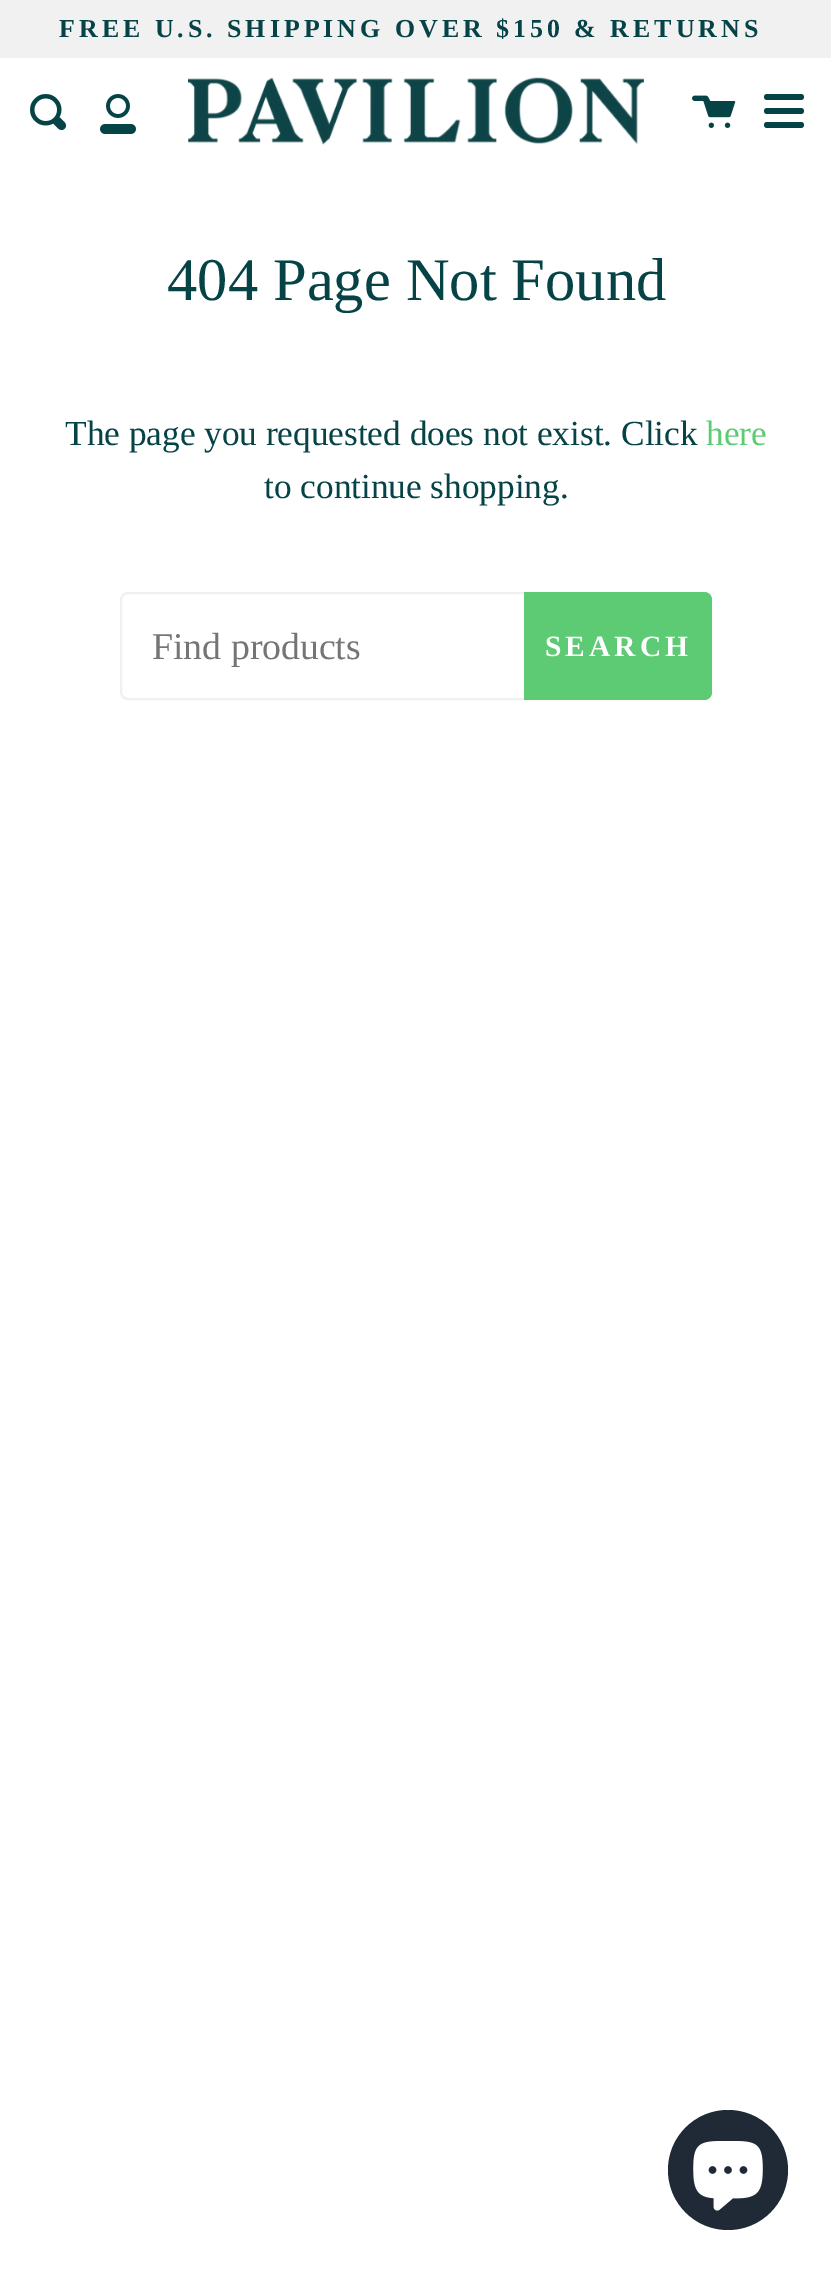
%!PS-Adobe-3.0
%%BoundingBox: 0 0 831 2271
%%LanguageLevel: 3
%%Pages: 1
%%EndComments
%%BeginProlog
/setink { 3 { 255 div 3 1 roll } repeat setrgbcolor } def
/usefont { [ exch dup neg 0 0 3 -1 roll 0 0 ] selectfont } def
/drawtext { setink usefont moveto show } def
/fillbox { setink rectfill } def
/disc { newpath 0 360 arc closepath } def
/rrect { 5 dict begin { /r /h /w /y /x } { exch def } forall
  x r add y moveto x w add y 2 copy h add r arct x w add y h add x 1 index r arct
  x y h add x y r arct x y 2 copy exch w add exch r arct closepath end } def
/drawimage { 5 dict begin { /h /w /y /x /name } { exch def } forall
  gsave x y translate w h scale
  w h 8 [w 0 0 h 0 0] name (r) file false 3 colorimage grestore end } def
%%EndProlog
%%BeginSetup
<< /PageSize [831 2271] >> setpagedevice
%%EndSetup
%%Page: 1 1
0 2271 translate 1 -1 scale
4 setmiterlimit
0 0 831 2271 255 255 255 fillbox
0 0 831 58 241 241 242 fillbox
/LiberationSerif-Bold 25.9 usefont
5 67 71 setink
59 37 moveto 4 0 (FREE U.S. SHIPPING OVER $150 & RETURNS) ashow
(assets/img1.rgb) 188 77 456 68 drawimage
(assets/img2.rgb) 30 94 37 37 drawimage
(assets/img3.rgb) 100 94 36 40 drawimage
(assets/img4.rgb) 692 95 44 33 drawimage
767 94 moveto 798 94 lineto 798 100 lineto 767 100 lineto 765.5 100 764 98.5 764 97 curveto 764 95.5 765.5 94 767 94 curveto closepath fill
770 94 moveto 801 94 lineto 802.5 94 804 95.5 804 97 curveto 804 98.5 802.5 100 801 100 curveto 770 100 lineto closepath fill
767 108 moveto 798 108 lineto 798 114 lineto 767 114 lineto 765.5 114 764 112.5 764 111 curveto 764 109.5 765.5 108 767 108 curveto closepath fill
770 108 moveto 801 108 lineto 802.5 108 804 109.5 804 111 curveto 804 112.5 802.5 114 801 114 curveto 770 114 lineto closepath fill
767 122 moveto 798 122 lineto 798 128 lineto 767 128 lineto 765.5 128 764 126.5 764 125 curveto 764 123.5 765.5 122 767 122 curveto closepath fill
770 122 moveto 801 122 lineto 802.5 122 804 123.5 804 125 curveto 804 126.5 802.5 128 801 128 curveto 770 128 lineto closepath fill
(404 Page Not Found) 167 300 /LiberationSerif-Regular 60.5 5 67 71 drawtext
(The page you requested does not exist. Click) 65 445 /LiberationSerif-Regular 35.25 5 67 71 drawtext
(here) 706 445 /LiberationSerif-Regular 35.25 92 203 116 drawtext
(to continue shopping.) 264 498 /LiberationSerif-Regular 35.25 5 67 71 drawtext
240 240 240 setink
2 setlinewidth
121 593 590 106 7 rrect stroke
(Find products) 152 659 /LiberationSerif-Regular 37.75 117 117 117 drawtext
92 203 116 setink
524 592 moveto 704 592 lineto 708.5 592 712 595.5 712 600 curveto 712 692 lineto 712 696.5 708.5 700 704 700 curveto 524 700 lineto closepath fill
/LiberationSerif-Bold 29.5 usefont
255 255 255 setink
545 656 moveto 4 0 (SEARCH) ashow
32 42 54 setink
728 2170 60 disc fill
(assets/img5.rgb) 693 2141 70 70 drawimage
showpage
%%EOF
